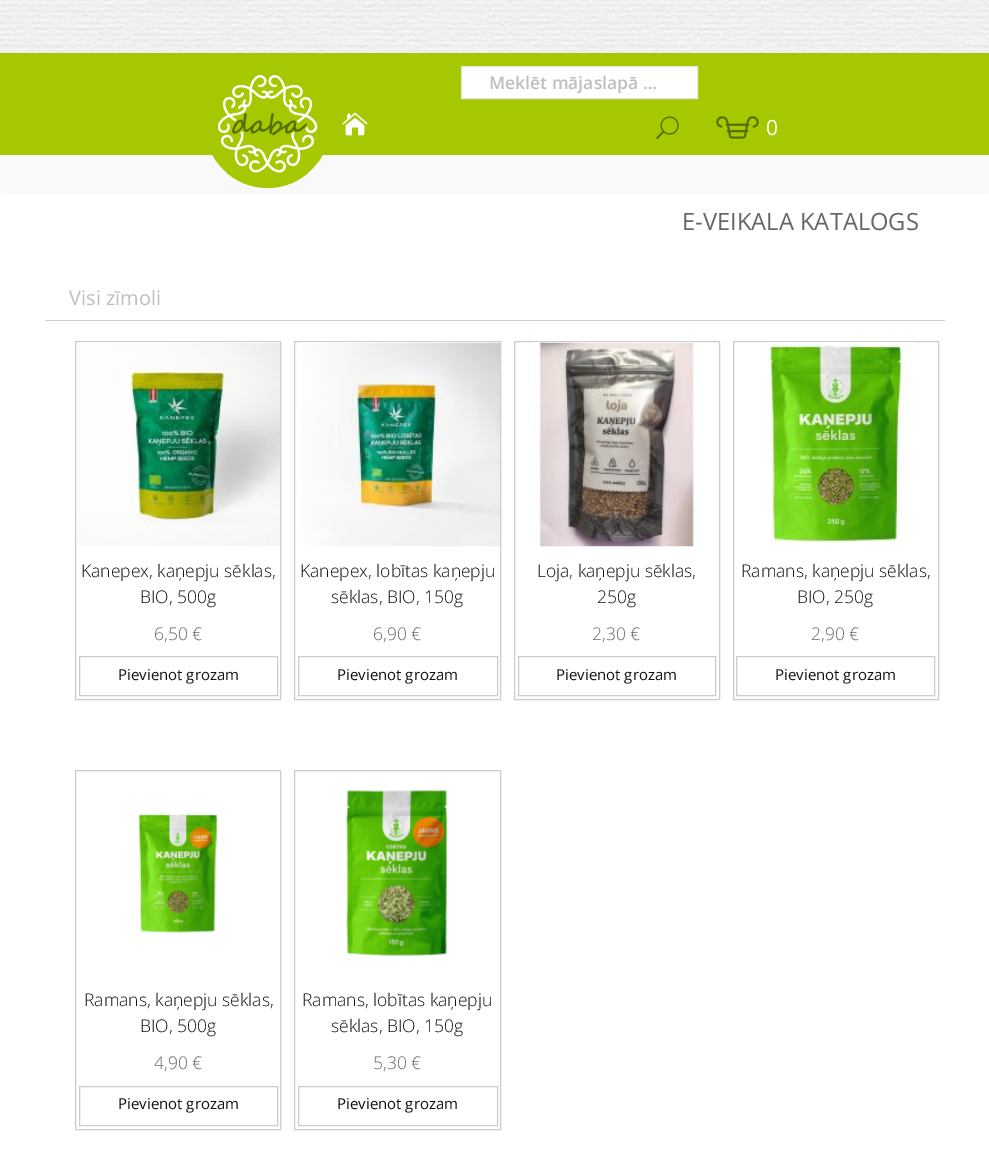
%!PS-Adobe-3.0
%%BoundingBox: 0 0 989 1155
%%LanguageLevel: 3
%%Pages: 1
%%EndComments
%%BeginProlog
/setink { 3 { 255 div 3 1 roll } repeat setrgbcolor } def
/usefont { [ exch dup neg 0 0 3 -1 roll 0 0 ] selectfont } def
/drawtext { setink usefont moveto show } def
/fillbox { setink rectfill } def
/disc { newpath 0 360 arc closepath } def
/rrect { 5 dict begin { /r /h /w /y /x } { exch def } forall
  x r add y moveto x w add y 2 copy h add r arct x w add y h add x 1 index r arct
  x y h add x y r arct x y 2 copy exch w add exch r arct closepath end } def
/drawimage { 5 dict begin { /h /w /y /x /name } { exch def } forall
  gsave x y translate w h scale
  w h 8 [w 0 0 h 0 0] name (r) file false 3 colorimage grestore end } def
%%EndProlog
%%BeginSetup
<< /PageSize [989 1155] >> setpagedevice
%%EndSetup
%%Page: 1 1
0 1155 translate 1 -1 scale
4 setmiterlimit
0 0 989 1155 255 255 255 fillbox
(assets/img1.rgb) 0 0 989 53 drawimage
249 249 249 setink
0 106 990 88 5 rrect fill
0 53 989 102 165 200 0 fillbox
267.5 125.5 62.5 disc fill
(assets/img2.rgb) 218 75 100 98 drawimage
(assets/img3.rgb) 342 112 26 24 drawimage
255 255 255 setink
461.5 66.5 moveto 697.5 66.5 lineto 697.5 98.5 lineto 461.5 98.5 lineto closepath gsave fill grestore
229 229 229 setink
stroke
(Meklēt mājaslapā …) 489 89 /OpenSans-SemiBold 17.5 190 190 190 drawtext
(assets/img4.rgb) 656 116 23 23 drawimage
(assets/img5.rgb) 716 116 43 23 drawimage
(0) 766 135 /OpenSans-Regular 21 255 255 255 drawtext
(E-VEIKALA KATALOGS) 682 230 /OpenSans-Regular 23.75 102 102 102 drawtext
45 320 900 1 204 204 204 fillbox
(Visi zīmoli) 69 305 /OpenSans-Regular 20 190 190 190 drawtext
204 204 204 setink
75.5 341.5 205 358 rectstroke
(assets/img6.rgb) 77 342 203 204 drawimage
(Kanepex, kaņepju sēklas,) 81 577 /OpenSans-Light 17.5 17 17 17 drawtext
(BIO, 500g) 140 603 /OpenSans-Light 17.5 17 17 17 drawtext
(6,50 €) 154 640 /OpenSans-Light 17.5 102 102 102 drawtext
204 204 204 setink
79.5 656.5 198 39 rectstroke
(Pievienot grozam) 118 680 /OpenSans-Regular 15 17 17 17 drawtext
204 204 204 setink
294.5 341.5 206 358 rectstroke
(assets/img7.rgb) 301 342 199 205 drawimage
(Kanepex, lobītas kaņepju) 300 577 /OpenSans-Light 17.5 17 17 17 drawtext
(sēklas, BIO, 150g) 331 603 /OpenSans-Light 17.5 17 17 17 drawtext
(6,90 €) 373 640 /OpenSans-Light 17.5 102 102 102 drawtext
204 204 204 setink
298.5 656.5 199 39 rectstroke
(Pievienot grozam) 337 680 /OpenSans-Regular 15 17 17 17 drawtext
204 204 204 setink
514.5 341.5 205 358 rectstroke
(assets/img8.rgb) 534 342 162 205 drawimage
(Loja, kaņepju sēklas,) 537 577 /OpenSans-Light 17.5 17 17 17 drawtext
(250g) 597 603 /OpenSans-Light 17.5 17 17 17 drawtext
(2,30 €) 592 640 /OpenSans-Light 17.5 102 102 102 drawtext
204 204 204 setink
518.5 656.5 197 39 rectstroke
(Pievienot grozam) 556 680 /OpenSans-Regular 15 17 17 17 drawtext
204 204 204 setink
733.5 341.5 205 358 rectstroke
(assets/img9.rgb) 769 342 146 201 drawimage
(Ramans, kaņepju sēklas,) 741 577 /OpenSans-Light 17.5 17 17 17 drawtext
(BIO, 250g) 797 603 /OpenSans-Light 17.5 17 17 17 drawtext
(2,90 €) 811 640 /OpenSans-Light 17.5 102 102 102 drawtext
204 204 204 setink
736.5 656.5 198 39 rectstroke
(Pievienot grozam) 775 680 /OpenSans-Regular 15 17 17 17 drawtext
204 204 204 setink
75.5 770.5 205 359 rectstroke
(assets/img10.rgb) 138 813 80 120 drawimage
(Ramans, kaņepju sēklas,) 84 1006 /OpenSans-Light 17.5 17 17 17 drawtext
(BIO, 500g) 140 1032 /OpenSans-Light 17.5 17 17 17 drawtext
(4,90 €) 154 1069 /OpenSans-Light 17.5 102 102 102 drawtext
204 204 204 setink
79.5 1086.5 198 39 rectstroke
(Pievienot grozam) 118 1109 /OpenSans-Regular 15 17 17 17 drawtext
204 204 204 setink
294.5 770.5 206 359 rectstroke
(assets/img11.rgb) 346 790 102 166 drawimage
(Ramans, lobītas kaņepju) 302 1006 /OpenSans-Light 17.5 17 17 17 drawtext
(sēklas, BIO, 150g) 331 1032 /OpenSans-Light 17.5 17 17 17 drawtext
(5,30 €) 373 1069 /OpenSans-Light 17.5 102 102 102 drawtext
204 204 204 setink
298.5 1086.5 199 39 rectstroke
(Pievienot grozam) 337 1109 /OpenSans-Regular 15 17 17 17 drawtext
showpage
%%EOF
